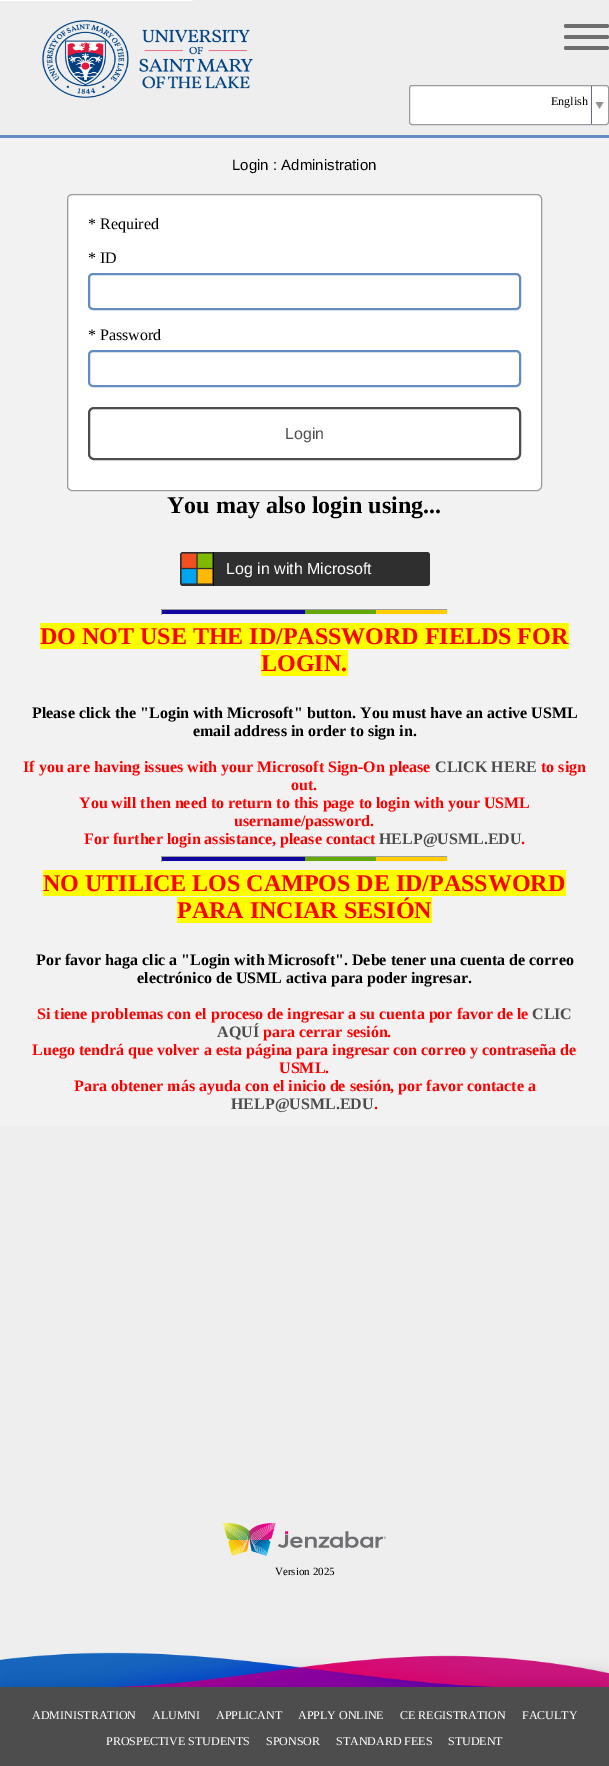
%!PS-Adobe-3.0
%%BoundingBox: 0 0 609 1766
%%LanguageLevel: 3
%%Pages: 1
%%EndComments
%%BeginProlog
/setink { 3 { 255 div 3 1 roll } repeat setrgbcolor } def
/usefont { [ exch dup neg 0 0 3 -1 roll 0 0 ] selectfont } def
/drawtext { setink usefont moveto show } def
/fillbox { setink rectfill } def
/setalpha { dup .setfillconstantalpha .setstrokeconstantalpha } def
/rrect { 5 dict begin { /r /h /w /y /x } { exch def } forall
  x r add y moveto x w add y 2 copy h add r arct x w add y h add x 1 index r arct
  x y h add x y r arct x y 2 copy exch w add exch r arct closepath end } def
/softshadow { 12 dict begin { /a /b /q /h /w /y /x } { exch def } forall gsave /was 0 def
  9 -2 -9 { dup b mul 4 div /e exch def 1 sub .425 mul 2.718 exch exp 1 add a .99 .min exch div /now exch def
    1 1 now sub 1 was sub div sub setalpha /was now def
    w h .min e 2 mul add 0 gt { x e sub y e sub w e 2 mul add h e 2 mul add
      q e add b .6 mul add w h .min 2 div e add .min 0 .max rrect fill } if } for grestore end } def
/drawimage { 5 dict begin { /h /w /y /x /name } { exch def } forall
  gsave x y translate w h scale
  w h 8 [w 0 0 h 0 0] name (r) file false 3 colorimage grestore end } def
%%EndProlog
%%BeginSetup
<< /PageSize [609 1766] /PageUsesTransparency true >> setpagedevice
%%EndSetup
%%Page: 1 1
0 .pushpdf14devicefilter
0 1766 translate 1 -1 scale
4 setmiterlimit
0 0 609 1766 238 238 238 fillbox
0 135 609 3 101 140 194 fillbox
255 255 255 setink
0 -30 moveto 198 -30 lineto 198 -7 lineto 198 -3 194 1 190 1 curveto 0 1 lineto closepath 0 -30 moveto 197 -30 lineto 197 -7 lineto 197 -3 194 0 190 0 curveto 0 0 lineto closepath eofill
(assets/img1.rgb) 42 20 211 78 drawimage
110 110 110 setink
564 24 45 4 2 rrect fill
564 35 45 4 2 rrect fill
564 46 45 4 2 rrect fill
255 255 255 setink
409.5 85.5 199 39 2.5 rrect gsave fill grestore
155 155 155 setink
stroke
(English) 551 105 /LiberationSerif-Regular 12 0 0 0 drawtext
(assets/img2.rgb) 595 102 9 7 drawimage
591 86 1 38 105 103 134 fillbox
0 138 609 988 242 242 242 fillbox
(Login : Administration) 232 170 /LiberationSans-Regular 15 0 0 0 drawtext
255 255 255 setink
67.5 194.5 474 296 4.5 rrect gsave fill grestore
155 155 155 setink
stroke
(* Required) 88 229 /LiberationSerif-Regular 16 0 0 0 drawtext
(* ID) 88 263 /LiberationSerif-Regular 16 0 0 0 drawtext
101 140 194 setink
2 setlinewidth
89 274 431 35 4 rrect stroke
(* Password) 88 340 /LiberationSerif-Regular 16 0 0 0 drawtext
101 140 194 setink
89 351 431 35 4 rrect stroke
77 77 77 setink
89 408 431 51 5 rrect stroke
(Login) 285 439 /LiberationSans-Regular 16 77 77 77 drawtext
(You may also login using...) 167 513 /LiberationSerif-Bold 24 0 0 0 drawtext
47 47 47 setink
180 552 250 34 3 rrect fill
(assets/img3.rgb) 181 553 32 31 drawimage
213 552 1 34 0 0 0 fillbox
(Log in with Microsoft) 226 574 /LiberationSans-Regular 16 255 255 255 drawtext
162 610 143 4 16 6 159 fillbox
305 610 71 4 100 167 11 fillbox
376 610 71 4 255 205 0 fillbox
161 609 287 1 159 159 159 fillbox
447 609 1 6 238 238 238 fillbox
161 614 287 1 238 238 238 fillbox
161 609 1 6 159 159 159 fillbox
40 623 529 26 255 255 0 fillbox
(DO NOT USE THE ID/PASSWORD FIELDS FOR) 40 644 /LiberationSerif-Bold 24 255 0 0 drawtext
261 650 87 26 255 255 0 fillbox
(LOGIN.) 261 671 /LiberationSerif-Bold 24 255 0 0 drawtext
(Please click the "Login with Microsoft" button. You must have an active USML) 32 718 /LiberationSerif-Bold 16 0 0 0 drawtext
(email address in order to sign in.) 193 736 /LiberationSerif-Bold 16 0 0 0 drawtext
(If you are having issues with your Microsoft Sign-On please) 23 772 /LiberationSerif-Bold 16 255 0 0 drawtext
(CLICK HERE) 435 772 /LiberationSerif-Bold 16 77 77 77 drawtext
(to sign) 541 772 /LiberationSerif-Bold 16 255 0 0 drawtext
(out.) 291 790 /LiberationSerif-Bold 16 255 0 0 drawtext
(You will then need to return to this page to login with your USML) 79 808 /LiberationSerif-Bold 16 255 0 0 drawtext
(username/password.) 234 826 /LiberationSerif-Bold 16 255 0 0 drawtext
(For further login assistance, please contact) 84 844 /LiberationSerif-Bold 16 255 0 0 drawtext
(HELP@USML.EDU) 379 844 /LiberationSerif-Bold 16 77 77 77 drawtext
(.) 521 844 /LiberationSerif-Bold 16 255 0 0 drawtext
162 857 143 4 16 6 159 fillbox
305 857 71 4 100 167 11 fillbox
376 857 71 4 255 205 0 fillbox
161 856 287 1 159 159 159 fillbox
447 856 1 6 238 238 238 fillbox
161 861 287 1 238 238 238 fillbox
161 856 1 6 159 159 159 fillbox
43 870 523 26 255 255 0 fillbox
(NO UTILICE LOS CAMPOS DE ID/PASSWORD) 43 891 /LiberationSerif-Bold 24 255 0 0 drawtext
177 897 255 26 255 255 0 fillbox
(PARA INCIAR SESIÓN) 177 918 /LiberationSerif-Bold 24 255 0 0 drawtext
(Por favor haga clic a "Login with Microsoft". Debe tener una cuenta de correo) 36 965 /LiberationSerif-Bold 16 0 0 0 drawtext
(electrónico de USML activa para poder ingresar.) 137 983 /LiberationSerif-Bold 16 0 0 0 drawtext
(Si tiene problemas con el proceso de ingresar a su cuenta por favor de le) 37 1019 /LiberationSerif-Bold 16 255 0 0 drawtext
(CLIC) 532 1019 /LiberationSerif-Bold 16 77 77 77 drawtext
(AQUÍ) 217 1037 /LiberationSerif-Bold 16 77 77 77 drawtext
(para cerrar sesión.) 263 1037 /LiberationSerif-Bold 16 255 0 0 drawtext
(Luego tendrá que volver a esta página para ingresar con correo y contraseña de) 32 1055 /LiberationSerif-Bold 16 255 0 0 drawtext
(USML.) 279 1073 /LiberationSerif-Bold 16 255 0 0 drawtext
(Para obtener más ayuda con el inicio de sesión, por favor contacte a) 74 1091 /LiberationSerif-Bold 16 255 0 0 drawtext
(HELP@USML.EDU) 231 1109 /LiberationSerif-Bold 16 77 77 77 drawtext
(.) 374 1109 /LiberationSerif-Bold 16 255 0 0 drawtext
(assets/img4.rgb) 223 1523 163 33 drawimage
(Version 2025) 275 1575 /LiberationSerif-Regular 11 0 0 0 drawtext
77 77 77 setink
0 1682 609 79 0 10 1 softshadow
(assets/img5.rgb) 0 1652 609 35 drawimage
0 1687 609 79 77 77 77 fillbox
(ADMINISTRATION) 32 1719 /LiberationSerif-Regular 12 255 255 255 drawtext
(ALUMNI) 152 1719 /LiberationSerif-Regular 12 255 255 255 drawtext
(APPLICANT) 216 1719 /LiberationSerif-Regular 12 255 255 255 drawtext
(APPLY ONLINE) 298 1719 /LiberationSerif-Regular 12 255 255 255 drawtext
(CE REGISTRATION) 400 1719 /LiberationSerif-Regular 12 255 255 255 drawtext
(FACULTY) 522 1719 /LiberationSerif-Regular 12 255 255 255 drawtext
(PROSPECTIVE STUDENTS) 106 1745 /LiberationSerif-Regular 12 255 255 255 drawtext
(SPONSOR) 266 1745 /LiberationSerif-Regular 12 255 255 255 drawtext
(STANDARD FEES) 336 1745 /LiberationSerif-Regular 12 255 255 255 drawtext
(STUDENT) 448 1745 /LiberationSerif-Regular 12 255 255 255 drawtext
.poppdf14devicefilter showpage
%%EOF
